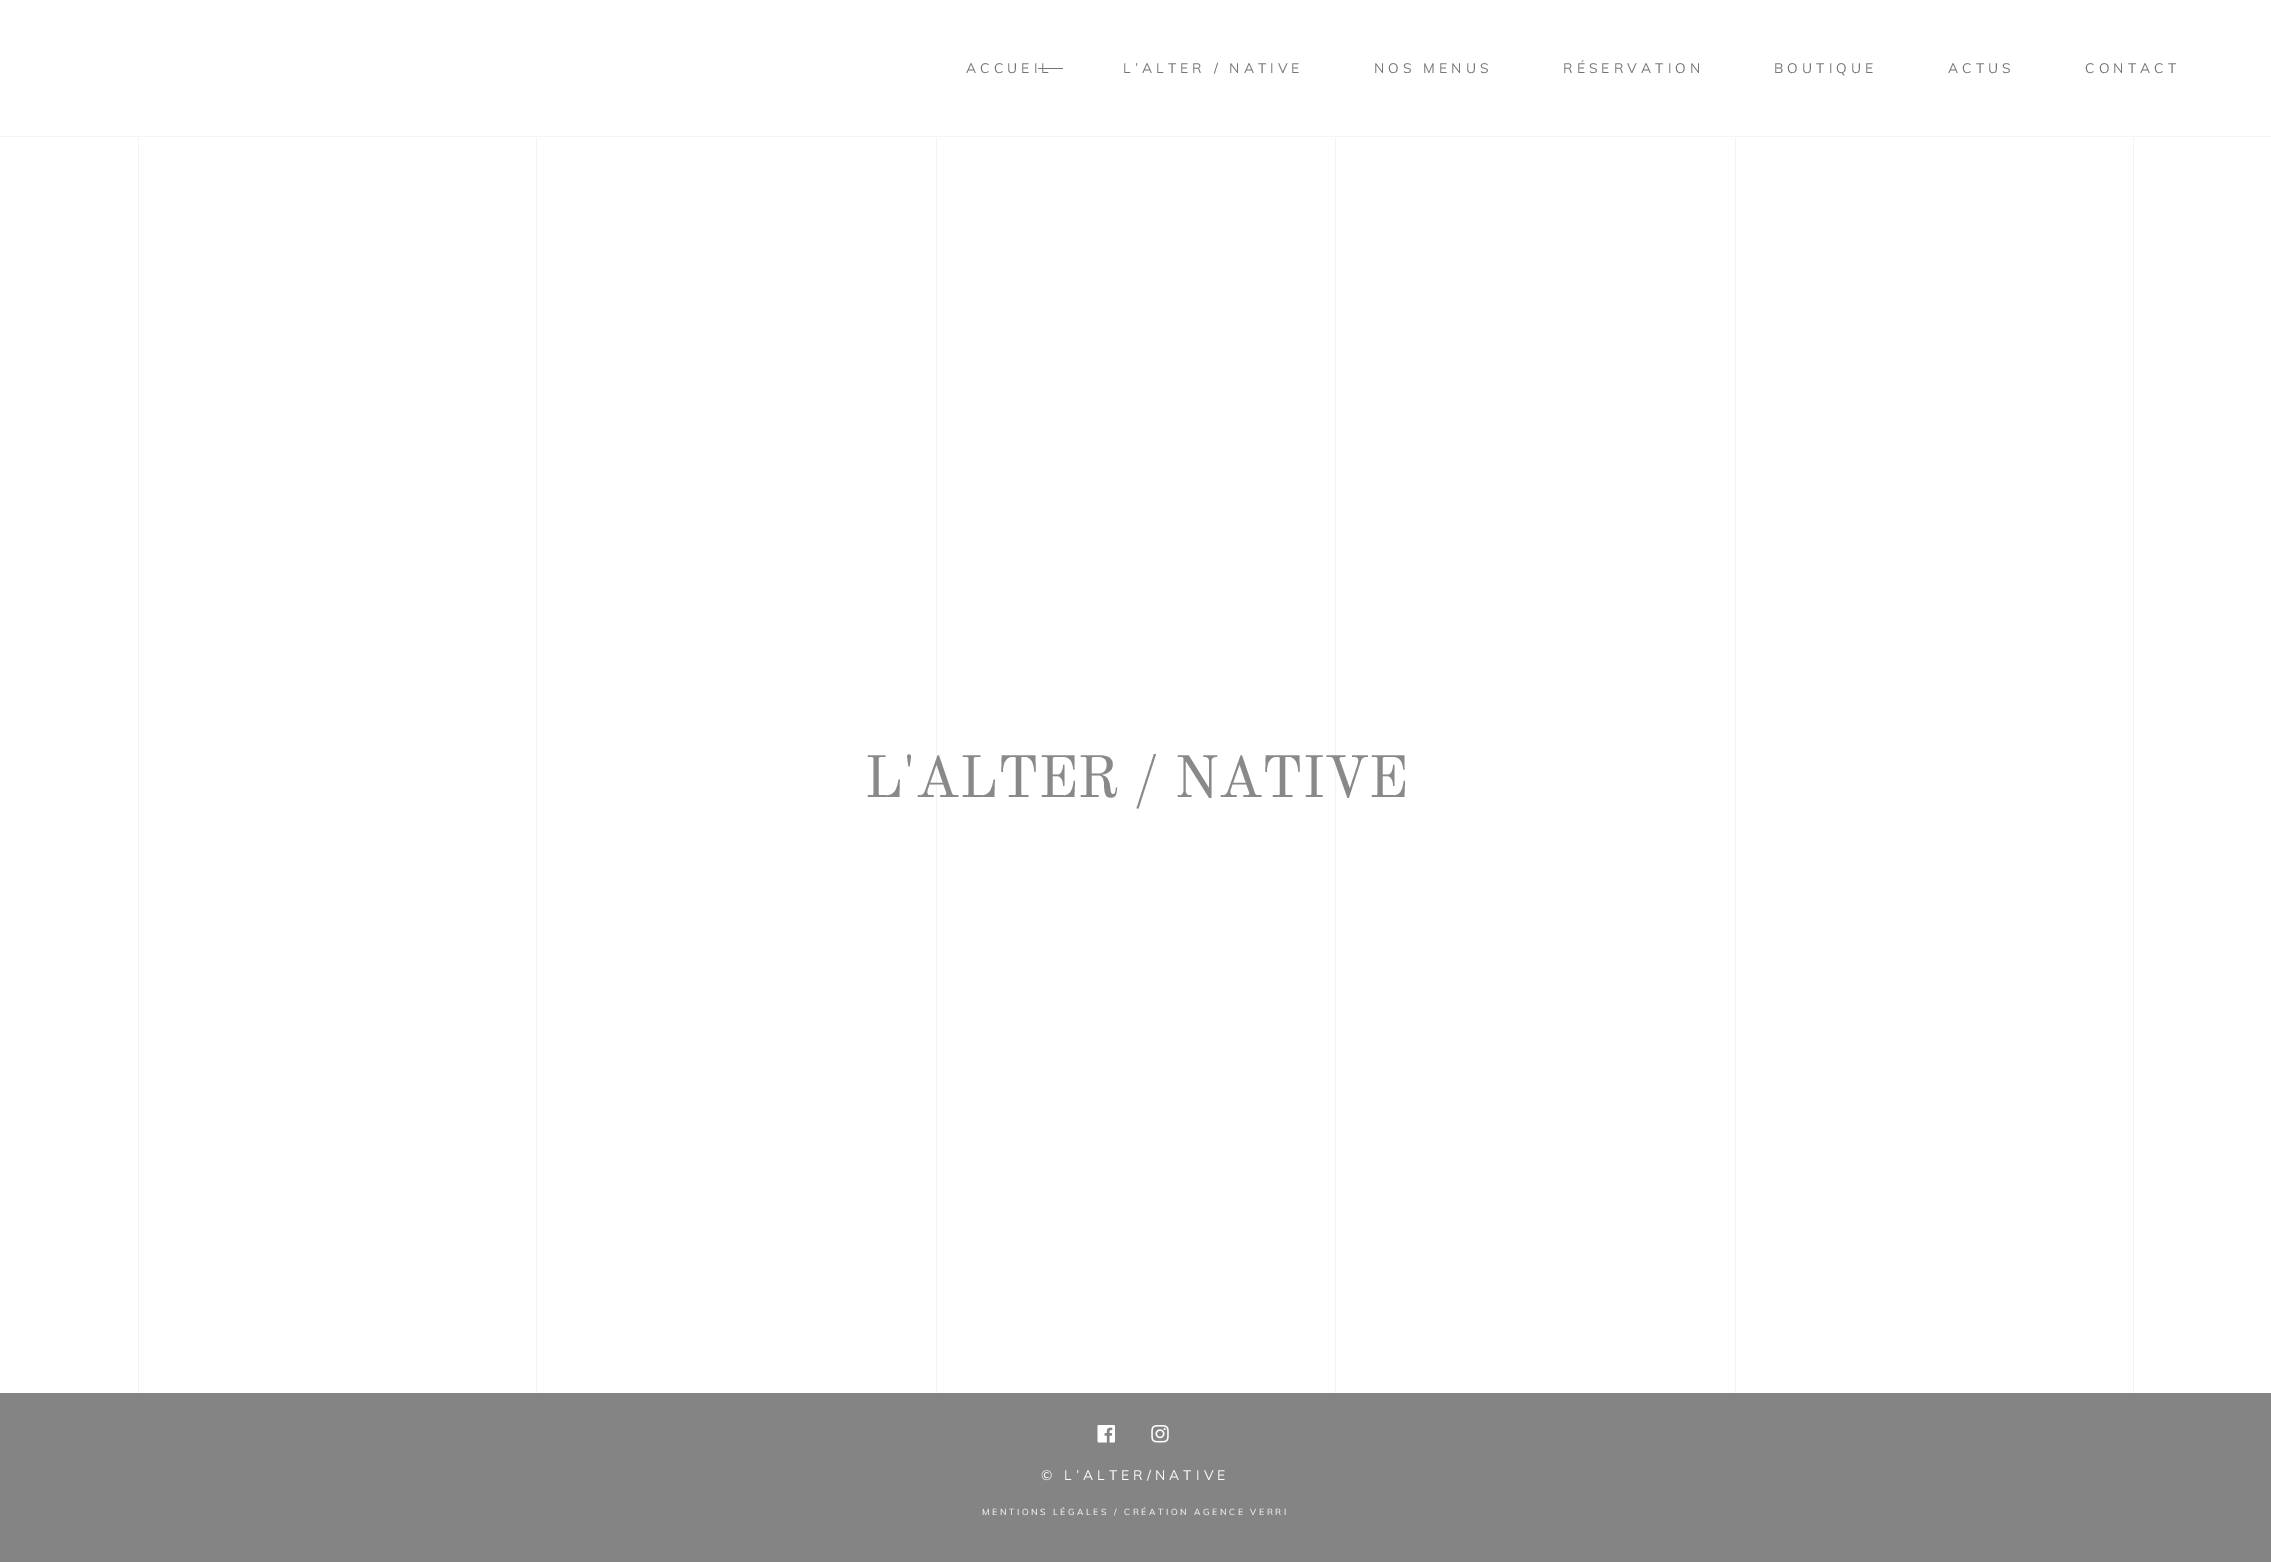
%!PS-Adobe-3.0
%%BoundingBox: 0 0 2271 1562
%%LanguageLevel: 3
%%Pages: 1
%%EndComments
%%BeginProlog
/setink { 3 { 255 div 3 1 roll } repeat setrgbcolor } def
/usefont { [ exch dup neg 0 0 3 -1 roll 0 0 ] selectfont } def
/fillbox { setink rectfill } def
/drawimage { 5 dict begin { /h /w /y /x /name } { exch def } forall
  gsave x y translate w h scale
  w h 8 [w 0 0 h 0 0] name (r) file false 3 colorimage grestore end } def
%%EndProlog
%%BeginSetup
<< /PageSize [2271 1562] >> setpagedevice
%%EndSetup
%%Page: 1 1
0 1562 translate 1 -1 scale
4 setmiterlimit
0 0 2271 1562 255 255 255 fillbox
0 136 2271 1 246 244 242 fillbox
1038 68 25 1 117 117 117 fillbox
/Muli-Regular 13.75 usefont
966 73 moveto 4.1 0 (ACCUEIL) ashow
1123 73 moveto 4.1 0 (L’ALTER / NATIVE) ashow
1374 73 moveto 4.1 0 (NOS MENUS) ashow
1563 73 moveto 4.1 0 (RÉSERVATION) ashow
1774 73 moveto 4.1 0 (BOUTIQUE) ashow
1948 73 moveto 4.1 0 (ACTUS) ashow
2085 73 moveto 4.1 0 (CONTACT) ashow
138 138 1 1255 245 243 241 fillbox
536 138 1 1255 245 243 241 fillbox
936 138 1 1255 245 243 241 fillbox
1335 138 1 1255 245 243 241 fillbox
1735 138 1 1255 245 243 241 fillbox
2133 138 1 1255 245 243 241 fillbox
0 1393 2271 169 132 132 132 fillbox
(assets/img1.rgb) 1097 1425 18 18 drawimage
(assets/img2.rgb) 1151 1425 18 18 drawimage
255 255 255 setink
1041 1480 moveto 4.1 0 (© L’ALTER/NATIVE) ashow
/Muli-Regular 8.75 usefont
982 1515 moveto 2.6 0 (MENTIONS LÉGALES / CRÉATION AGENCE VERRI) ashow
/OldStandardTT-Regular 58.75 usefont
137 137 137 setink
864 797 moveto -1.2 0 (L'ALTER / NATIVE) ashow
showpage
%%EOF
